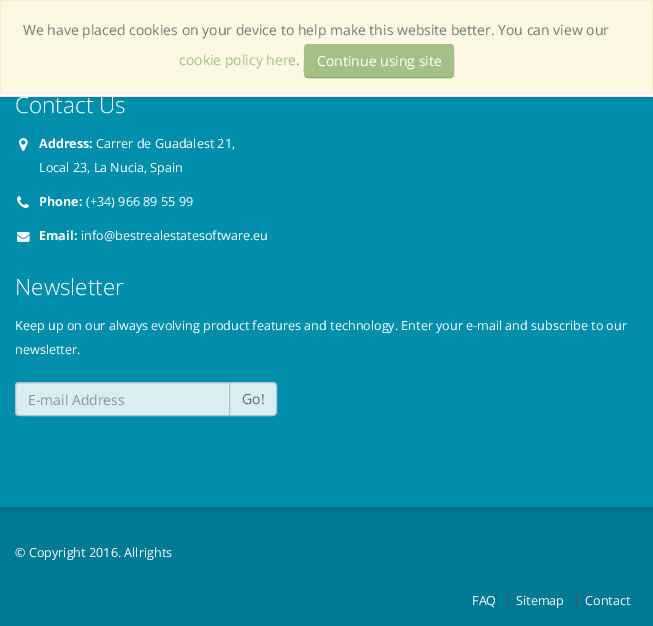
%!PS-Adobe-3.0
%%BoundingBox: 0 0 653 626
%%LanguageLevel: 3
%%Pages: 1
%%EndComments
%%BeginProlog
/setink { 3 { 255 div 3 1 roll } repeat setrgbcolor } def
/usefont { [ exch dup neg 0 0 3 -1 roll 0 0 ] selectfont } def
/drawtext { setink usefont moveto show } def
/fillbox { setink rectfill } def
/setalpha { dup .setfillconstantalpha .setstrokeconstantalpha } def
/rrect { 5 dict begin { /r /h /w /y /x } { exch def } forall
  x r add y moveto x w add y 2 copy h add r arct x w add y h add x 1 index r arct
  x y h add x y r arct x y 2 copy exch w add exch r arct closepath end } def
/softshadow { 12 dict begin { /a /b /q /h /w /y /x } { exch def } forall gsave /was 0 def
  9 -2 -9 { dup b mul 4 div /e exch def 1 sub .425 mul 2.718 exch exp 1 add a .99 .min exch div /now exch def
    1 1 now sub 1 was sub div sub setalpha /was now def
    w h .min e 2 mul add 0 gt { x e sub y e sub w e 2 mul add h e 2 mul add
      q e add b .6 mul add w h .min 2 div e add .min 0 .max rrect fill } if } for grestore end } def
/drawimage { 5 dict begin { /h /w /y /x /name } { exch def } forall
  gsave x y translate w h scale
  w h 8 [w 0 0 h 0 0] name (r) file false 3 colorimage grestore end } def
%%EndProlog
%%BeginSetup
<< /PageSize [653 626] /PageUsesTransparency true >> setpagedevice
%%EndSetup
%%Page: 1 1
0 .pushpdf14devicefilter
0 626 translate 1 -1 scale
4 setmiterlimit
0 0 653 626 0 142 173 fillbox
0 0 0 setink
0 -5 653 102 0 1.5 0.1 softshadow
252 248 227 setink
0.5 0.5 moveto 652.5 0.5 lineto 652.5 93.5 lineto 0.5 93.5 lineto closepath gsave fill grestore
250 235 204 setink
stroke
(We have placed cookies on your device to help make this website better. You can view our) 23 35 /OpenSans-Regular 14 119 119 119 drawtext
(cookie policy here) 179 65 /OpenSans-Regular 14 164 192 135 drawtext
(.) 296 65 /OpenSans-Regular 14 119 119 119 drawtext
164 192 135 setink
304 44 150 34 4 rrect fill
139 174 102 setink
452.5 76.5 moveto 452 77 451 77.5 450 77.5 curveto 308 77.5 lineto 307 77.5 306 77 305.5 76.5 curveto stroke
164 192 135 setink
305.5 76.5 moveto 303.5 74 304.5 64 304.5 61 curveto 304.5 52.5 lineto 304.5 49.5 304 44.5 308 44.5 curveto 450 44.5 lineto 454 44.5 453.5 49.5 453.5 52.5 curveto 453.5 61 lineto 453.5 64 454.5 74 452.5 76.5 curveto stroke
(Continue using site) 317 66 /OpenSans-Regular 14 255 255 255 drawtext
0 94 653 2 255 255 255 fillbox
(Contact Us) 15 113 /OpenSans-Light 22.5 255 255 255 drawtext
0 96 653 1 233 233 233 fillbox
(assets/img1.rgb) 19 138 9 13 drawimage
(Address:) 39 148 /OpenSans-Bold 12.6 255 255 255 drawtext
(Carrer de Guadalest 21,) 96 148 /OpenSans-Regular 12.6 255 255 255 drawtext
(Local 23, La Nucia, Spain) 39 172 /OpenSans-Regular 12.6 255 255 255 drawtext
(assets/img2.rgb) 17 196 12 12 drawimage
(Phone:) 39 206 /OpenSans-Bold 12.6 255 255 255 drawtext
(\(+34\) 966 89 55 99) 86 206 /OpenSans-Regular 12.6 255 255 255 drawtext
(assets/img3.rgb) 17 232 13 10 drawimage
(Email:) 39 240 /OpenSans-Bold 12.6 255 255 255 drawtext
(info@bestrealestatesoftware.eu) 81 240 /OpenSans-Regular 12.6 255 255 255 drawtext
(Newsletter) 15 295 /OpenSans-Light 22.5 255 255 255 drawtext
(Keep up on our always evolving product features and technology. Enter your e-mail and subscribe to our) 15 330 /OpenSans-Regular 12.6 255 255 255 drawtext
(newsletter.) 15 354 /OpenSans-Regular 12.6 255 255 255 drawtext
217 238 243 setink
19 382 moveto 230 382 lineto 230 416 lineto 19 416 lineto 17 416 15 414 15 412 curveto 15 386 lineto 15 384 17 382 19 382 curveto closepath fill
201 222 227 setink
19 384 moveto 229 384 lineto 229 383 lineto 19 383 lineto 17 383 16 384 16 386 curveto 16 387 lineto 16 385 17 384 19 384 curveto closepath fill
173 195 199 setink
19 382.5 moveto 229.5 382.5 lineto 229.5 415.5 lineto 19 415.5 lineto 17 415.5 15.5 414 15.5 412 curveto 15.5 386 lineto 15.5 384 17 382.5 19 382.5 curveto closepath stroke
(E-mail Address) 28 405 /OpenSans-Regular 14 130 151 156 drawtext
217 238 243 setink
229.5 382.5 moveto 273 382.5 lineto 275 382.5 276.5 384 276.5 386 curveto 276.5 412 lineto 276.5 414 275 415.5 273 415.5 curveto 229.5 415.5 lineto closepath gsave fill grestore
173 195 199 setink
stroke
(Go!) 242 404 /OpenSans-Regular 14 87 108 113 drawtext
0 511 653 115 0 121 148 fillbox
0 507 653 4 2 112 136 fillbox
(© Copyright 2016. Allrights) 15 557 /OpenSans-Regular 12.6 255 255 255 drawtext
(FAQ) 472 605 /OpenSans-Regular 12.6 255 255 255 drawtext
507 595 1 12 80 80 80 fillbox
(Sitemap) 516 605 /OpenSans-Regular 12.6 255 255 255 drawtext
576 595 1 12 80 80 80 fillbox
(Contact) 585 605 /OpenSans-Regular 12.6 255 255 255 drawtext
.poppdf14devicefilter showpage
%%EOF
